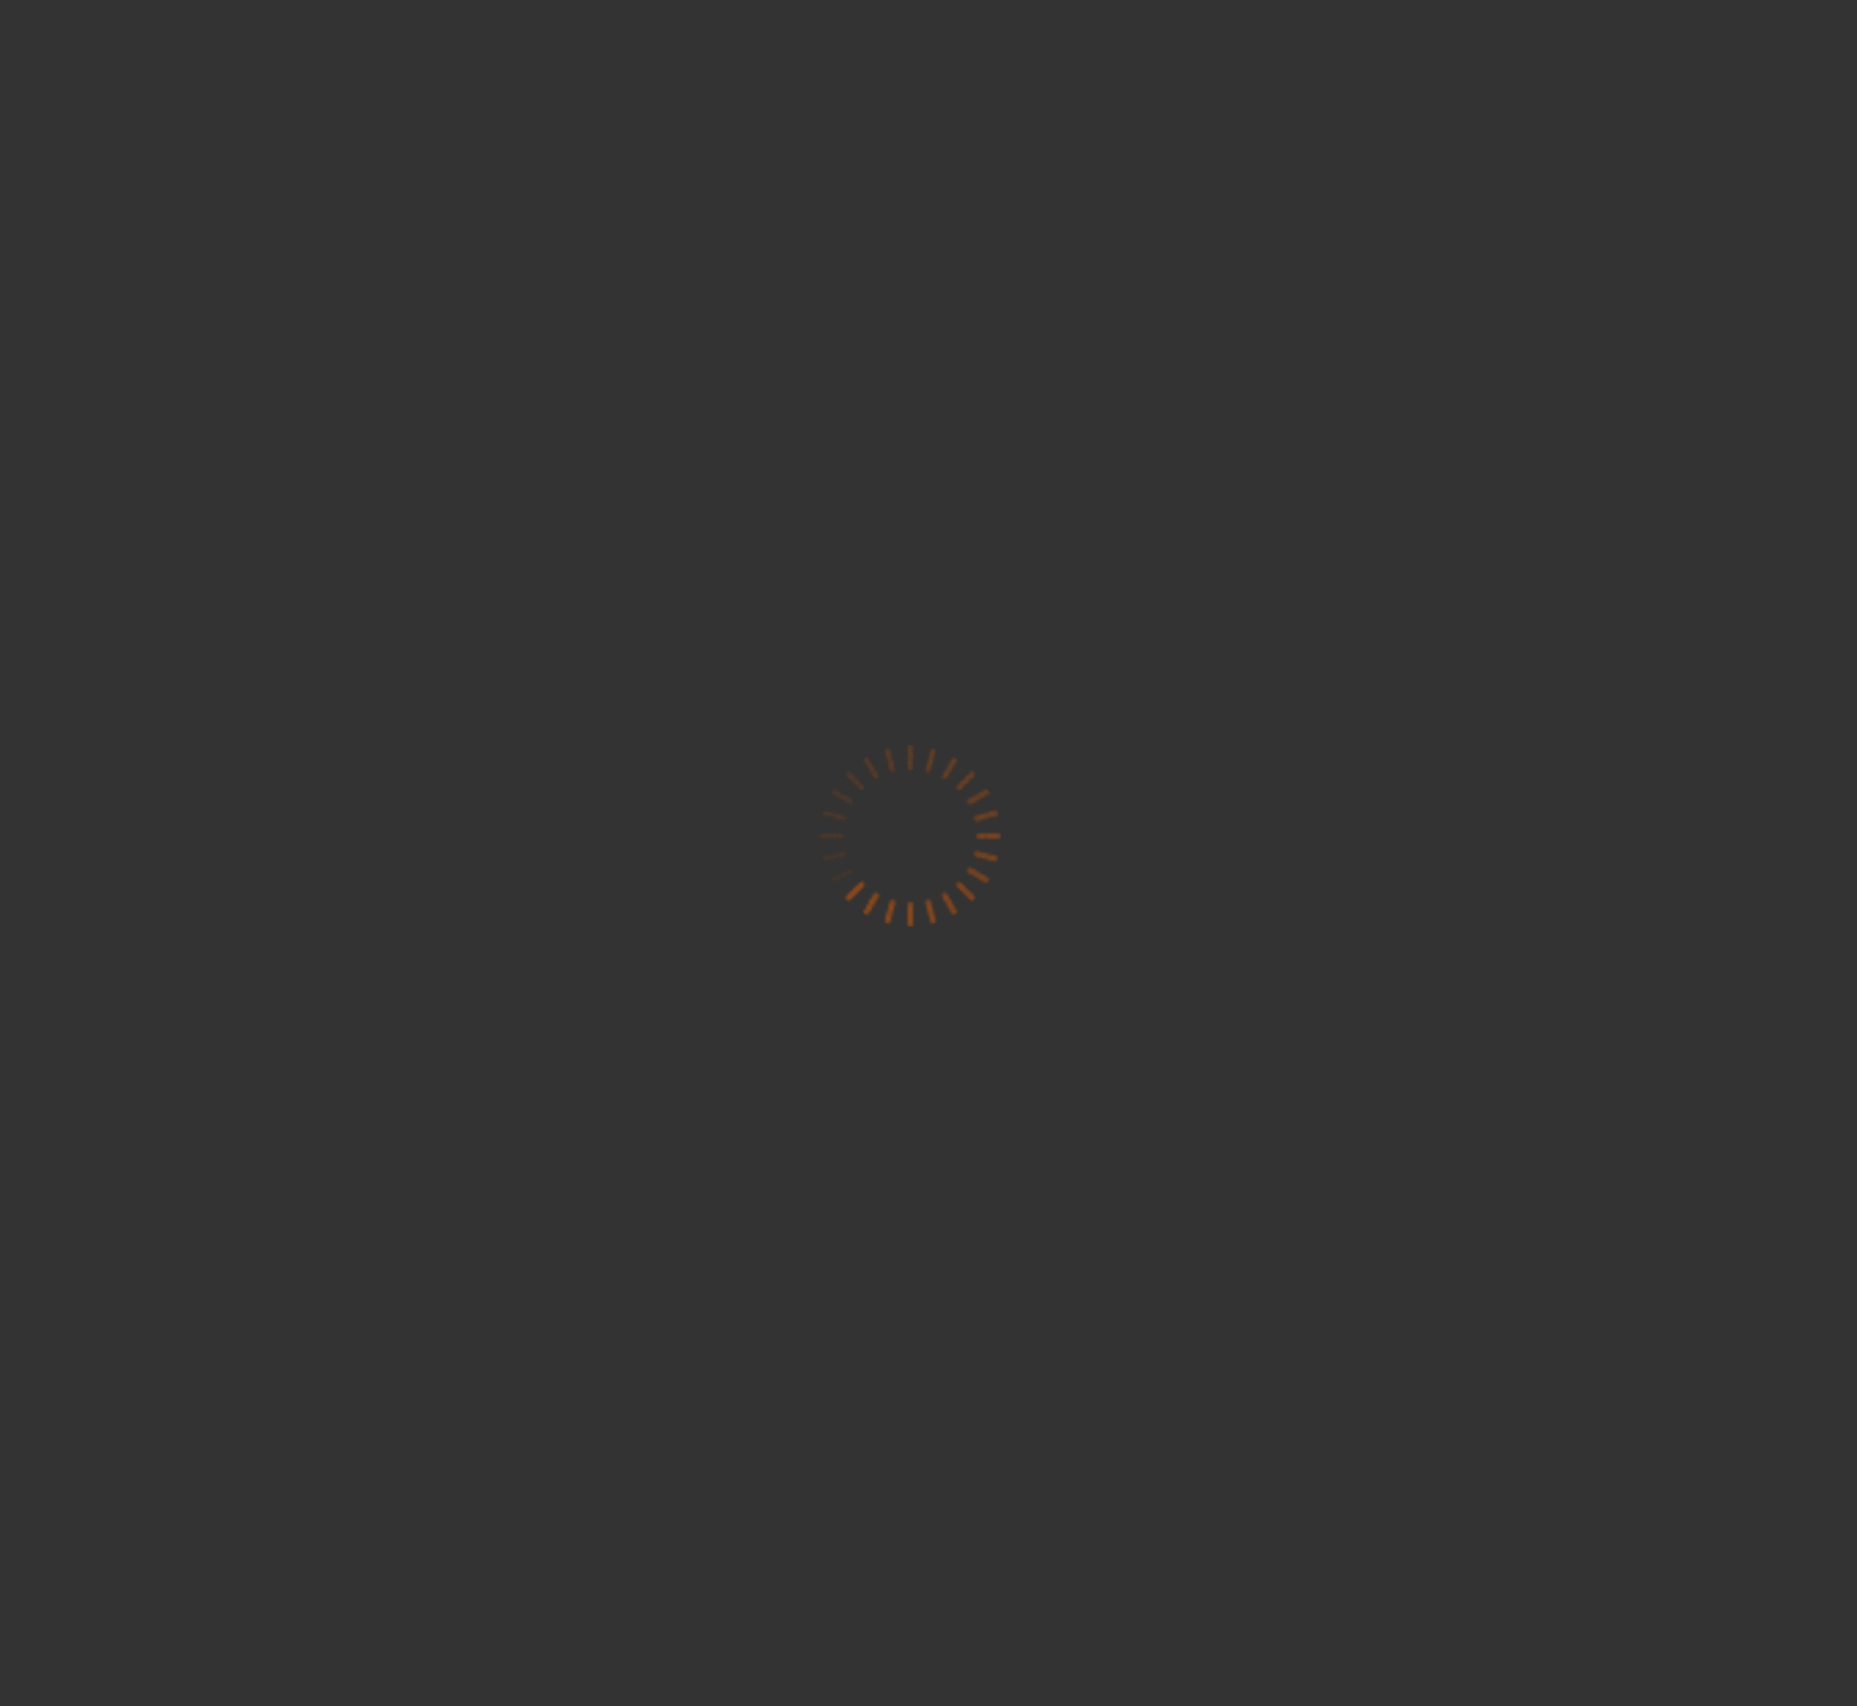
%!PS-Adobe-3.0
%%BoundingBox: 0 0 1857 1706
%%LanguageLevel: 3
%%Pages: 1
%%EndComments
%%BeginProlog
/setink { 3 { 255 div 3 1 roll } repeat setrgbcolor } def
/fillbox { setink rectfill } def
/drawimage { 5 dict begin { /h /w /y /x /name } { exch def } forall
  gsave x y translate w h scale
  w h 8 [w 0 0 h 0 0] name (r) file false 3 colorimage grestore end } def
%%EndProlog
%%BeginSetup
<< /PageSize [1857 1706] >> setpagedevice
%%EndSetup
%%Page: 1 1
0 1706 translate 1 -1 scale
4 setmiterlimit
0 0 1857 1706 51 51 51 fillbox
(assets/img1.rgb) 819 745 183 182 drawimage
showpage
%%EOF
